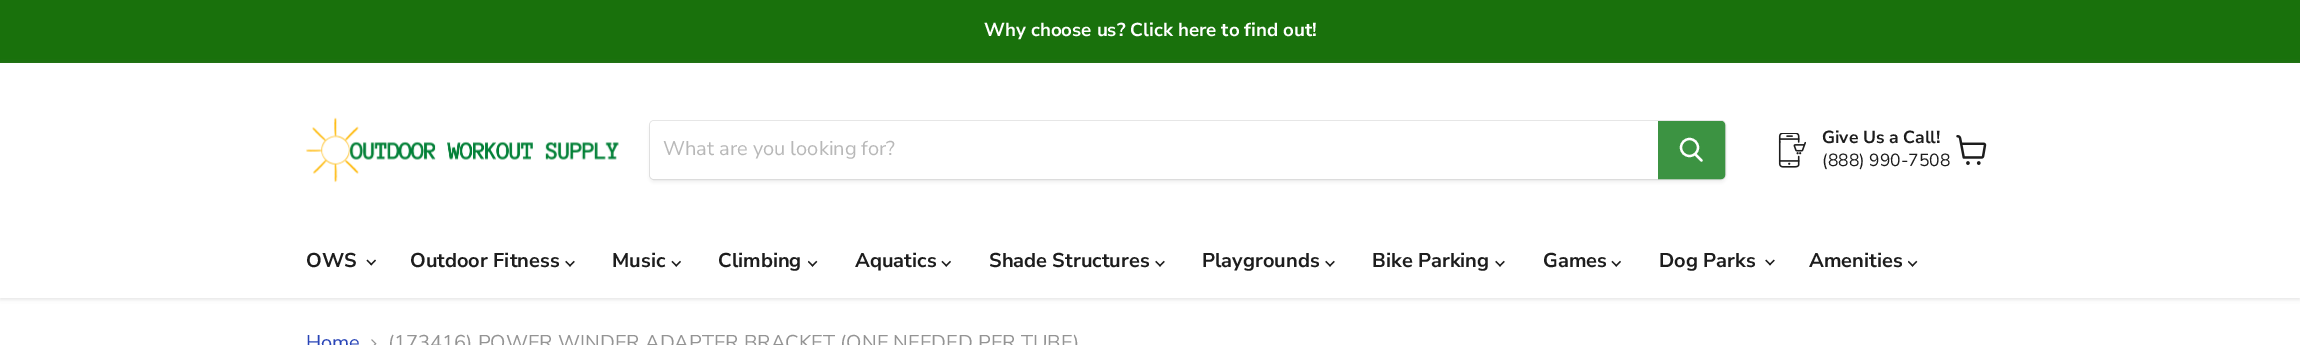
%!PS-Adobe-3.0
%%BoundingBox: 0 0 2300 345
%%LanguageLevel: 3
%%Pages: 1
%%EndComments
%%BeginProlog
/setink { 3 { 255 div 3 1 roll } repeat setrgbcolor } def
/usefont { [ exch dup neg 0 0 3 -1 roll 0 0 ] selectfont } def
/drawtext { setink usefont moveto show } def
/fillbox { setink rectfill } def
/setalpha { dup .setfillconstantalpha .setstrokeconstantalpha } def
/disc { newpath 0 360 arc closepath } def
/rrect { 5 dict begin { /r /h /w /y /x } { exch def } forall
  x r add y moveto x w add y 2 copy h add r arct x w add y h add x 1 index r arct
  x y h add x y r arct x y 2 copy exch w add exch r arct closepath end } def
/softshadow { 12 dict begin { /a /b /q /h /w /y /x } { exch def } forall gsave /was 0 def
  9 -2 -9 { dup b mul 4 div /e exch def 1 sub .425 mul 2.718 exch exp 1 add a .99 .min exch div /now exch def
    1 1 now sub 1 was sub div sub setalpha /was now def
    w h .min e 2 mul add 0 gt { x e sub y e sub w e 2 mul add h e 2 mul add
      q e add b .6 mul add w h .min 2 div e add .min 0 .max rrect fill } if } for grestore end } def
/drawimage { 5 dict begin { /h /w /y /x /name } { exch def } forall
  gsave x y translate w h scale
  w h 8 [w 0 0 h 0 0] name (r) file false 3 colorimage grestore end } def
%%EndProlog
%%BeginSetup
<< /PageSize [2300 345] /PageUsesTransparency true >> setpagedevice
%%EndSetup
%%Page: 1 1
0 .pushpdf14devicefilter
0 345 translate 1 -1 scale
4 setmiterlimit
0 0 2300 345 255 255 255 fillbox
0 0 2300 63 25 113 12 fillbox
(Why choose us? Click here to find out!) 984 36 /NunitoSans-Bold 18.75 255 255 255 drawtext
128 128 128 setink
0 64 2300 235 0 2.5 0.25 softshadow
0 63 2300 235 255 255 255 fillbox
(assets/img1.rgb) 306 117 313 66 drawimage
128 128 128 setink
649 123 1077 60 5 2 0.11 softshadow
0.2 setalpha
649.5 120.5 1076 59 4.5 rrect stroke
1 setalpha
255 255 255 setink
654 121 moveto 1658 121 lineto 1658 179 lineto 654 179 lineto 652 179 650 177 650 175 curveto 650 125 lineto 650 123 652 121 654 121 curveto closepath fill
(What are you looking for?) 663 155 /NunitoSans-Regular 20 184 184 184 drawtext
60 147 66 setink
1658.5 121.5 moveto 1721 121.5 lineto 1723 121.5 1724.5 123 1724.5 125 curveto 1724.5 175 lineto 1724.5 177 1723 178.5 1721 178.5 curveto 1658.5 178.5 lineto closepath gsave fill grestore
stroke
255 255 255 setink
2.2 setlinewidth
1 setlinecap
1701.5 160.5 moveto 1695.5 154.5 lineto stroke
0 setlinecap
1689.5 147.5 8.5 disc stroke
(assets/img2.rgb) 1778 133 28 35 drawimage
(Give Us a Call!) 1822 143 /NunitoSans-Bold 17.5 29 29 29 drawtext
(\(888\) 990-7508) 1822 166 /NunitoSans-Regular 17.5 29 29 29 drawtext
(assets/img3.rgb) 1956 135 31 30 drawimage
(OWS) 306 267 /NunitoSans-Bold 20 29 29 29 drawtext
(assets/img4.rgb) 366 259 10 7 drawimage
(Outdoor Fitness) 410 267 /NunitoSans-Bold 20 29 29 29 drawtext
(assets/img5.rgb) 565 260 10 7 drawimage
(Music) 612 267 /NunitoSans-Bold 20 29 29 29 drawtext
(assets/img6.rgb) 671 260 10 7 drawimage
(Climbing) 718 267 /NunitoSans-Bold 20 29 29 29 drawtext
(assets/img7.rgb) 808 260 10 7 drawimage
(Aquatics) 855 267 /NunitoSans-Bold 20 29 29 29 drawtext
(assets/img6.rgb) 941 260 10 7 drawimage
(Shade Structures) 989 267 /NunitoSans-Bold 20 29 29 29 drawtext
(assets/img5.rgb) 1155 260 10 7 drawimage
(Playgrounds) 1202 267 /NunitoSans-Bold 20 29 29 29 drawtext
(assets/img5.rgb) 1325 260 10 7 drawimage
(Bike Parking) 1372 267 /NunitoSans-Bold 20 29 29 29 drawtext
(assets/img5.rgb) 1495 260 10 7 drawimage
(Games) 1543 267 /NunitoSans-Bold 20 29 29 29 drawtext
(assets/img6.rgb) 1611 260 10 7 drawimage
(Dog Parks) 1659 267 /NunitoSans-Bold 20 29 29 29 drawtext
(assets/img8.rgb) 1765 259 10 7 drawimage
(Amenities) 1809 267 /NunitoSans-Bold 20 29 29 29 drawtext
(assets/img7.rgb) 1908 260 10 7 drawimage
(Home) 306 349 /NunitoSans-Regular 20 41 69 183 drawtext
(assets/img9.rgb) 371 339 6 6 drawimage
(\(173416\) POWER WINDER ADAPTER BRACKET \(ONE NEEDED PER TUBE\)) 388 349 /NunitoSans-Regular 20 148 148 148 drawtext
.poppdf14devicefilter showpage
%%EOF
